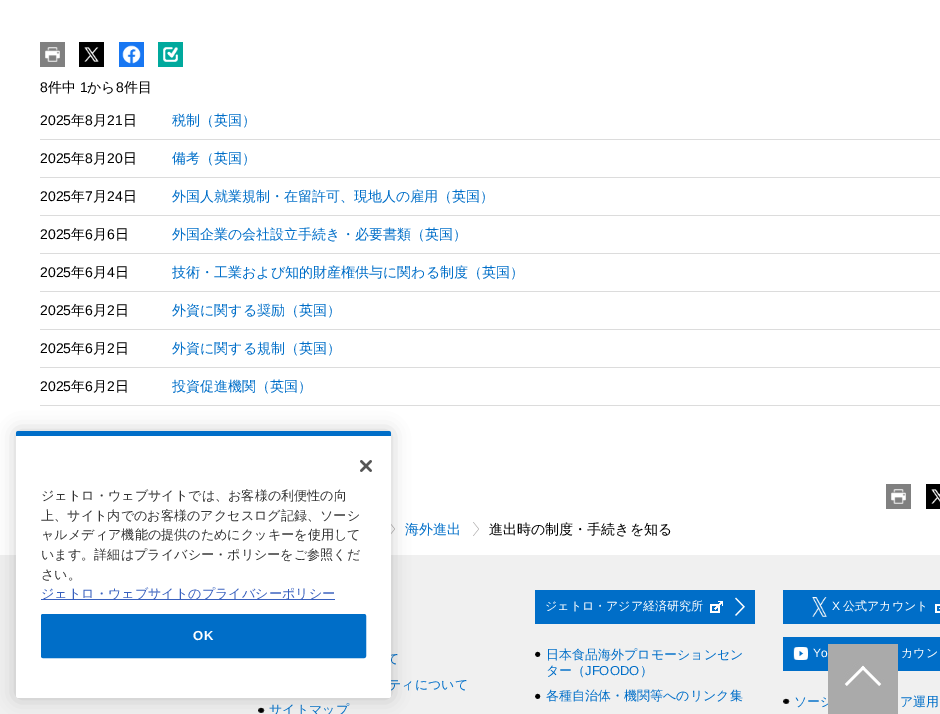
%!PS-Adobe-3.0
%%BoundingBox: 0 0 940 714
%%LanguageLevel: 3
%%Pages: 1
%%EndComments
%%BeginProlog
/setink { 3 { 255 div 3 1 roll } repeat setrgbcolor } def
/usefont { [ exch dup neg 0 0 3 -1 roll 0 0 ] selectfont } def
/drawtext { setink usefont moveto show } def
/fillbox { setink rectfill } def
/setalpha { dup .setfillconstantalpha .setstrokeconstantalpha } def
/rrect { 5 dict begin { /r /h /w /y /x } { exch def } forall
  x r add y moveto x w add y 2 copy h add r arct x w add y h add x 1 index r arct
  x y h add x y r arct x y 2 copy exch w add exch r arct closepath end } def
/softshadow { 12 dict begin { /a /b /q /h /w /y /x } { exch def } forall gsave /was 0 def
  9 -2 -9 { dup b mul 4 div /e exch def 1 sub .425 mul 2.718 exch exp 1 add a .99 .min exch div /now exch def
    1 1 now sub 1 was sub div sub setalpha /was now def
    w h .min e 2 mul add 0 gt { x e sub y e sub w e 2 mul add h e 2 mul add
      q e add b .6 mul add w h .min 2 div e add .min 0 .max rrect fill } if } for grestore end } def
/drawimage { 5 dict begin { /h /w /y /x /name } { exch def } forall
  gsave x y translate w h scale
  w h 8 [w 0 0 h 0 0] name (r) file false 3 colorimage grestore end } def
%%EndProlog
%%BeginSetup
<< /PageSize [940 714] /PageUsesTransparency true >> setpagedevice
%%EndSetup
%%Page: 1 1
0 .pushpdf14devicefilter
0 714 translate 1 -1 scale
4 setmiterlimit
0 0 940 714 255 255 255 fillbox
(assets/img1.rgb) 40 42 25 25 drawimage
(assets/img2.rgb) 79 42 25 25 drawimage
(assets/img3.rgb) 119 42 25 25 drawimage
(assets/img4.rgb) 158 42 25 25 drawimage
(8) 40 92 /LiberationSans-Regular 14 0 0 0 drawtext
(件中) 48 92 /WenQuanYiZenHei-Medium 14 0 0 0 drawtext
(1) 80 92 /LiberationSans-Regular 14 0 0 0 drawtext
(から) 87 92 /WenQuanYiZenHei-Medium 14 0 0 0 drawtext
(8) 116 92 /LiberationSans-Regular 14 0 0 0 drawtext
(件目) 124 92 /WenQuanYiZenHei-Medium 14 0 0 0 drawtext
40 139 900 1 220 220 220 fillbox
(2025) 40 125 /LiberationSans-Regular 14 0 0 0 drawtext
(年) 71 125 /WenQuanYiZenHei-Medium 14 0 0 0 drawtext
(8) 85 125 /LiberationSans-Regular 14 0 0 0 drawtext
(月) 93 125 /WenQuanYiZenHei-Medium 14 0 0 0 drawtext
(21) 107 125 /LiberationSans-Regular 14 0 0 0 drawtext
(日) 123 125 /WenQuanYiZenHei-Medium 14 0 0 0 drawtext
(税制（英国）) 172 125 /WenQuanYiZenHei-Medium 14 0 110 200 drawtext
40 177 900 1 220 220 220 fillbox
(2025) 40 163 /LiberationSans-Regular 14 0 0 0 drawtext
(年) 71 163 /WenQuanYiZenHei-Medium 14 0 0 0 drawtext
(8) 85 163 /LiberationSans-Regular 14 0 0 0 drawtext
(月) 93 163 /WenQuanYiZenHei-Medium 14 0 0 0 drawtext
(20) 107 163 /LiberationSans-Regular 14 0 0 0 drawtext
(日) 123 163 /WenQuanYiZenHei-Medium 14 0 0 0 drawtext
(備考（英国）) 172 163 /WenQuanYiZenHei-Medium 14 0 110 200 drawtext
40 215 900 1 220 220 220 fillbox
(2025) 40 201 /LiberationSans-Regular 14 0 0 0 drawtext
(年) 71 201 /WenQuanYiZenHei-Medium 14 0 0 0 drawtext
(7) 85 201 /LiberationSans-Regular 14 0 0 0 drawtext
(月) 93 201 /WenQuanYiZenHei-Medium 14 0 0 0 drawtext
(24) 107 201 /LiberationSans-Regular 14 0 0 0 drawtext
(日) 123 201 /WenQuanYiZenHei-Medium 14 0 0 0 drawtext
(外国人就業規制・在留許可、現地人の雇用（英国）) 172 201 /WenQuanYiZenHei-Medium 14 0 110 200 drawtext
40 253 900 1 220 220 220 fillbox
(2025) 40 239 /LiberationSans-Regular 14 0 0 0 drawtext
(年) 71 239 /WenQuanYiZenHei-Medium 14 0 0 0 drawtext
(6) 85 239 /LiberationSans-Regular 14 0 0 0 drawtext
(月) 93 239 /WenQuanYiZenHei-Medium 14 0 0 0 drawtext
(6) 107 239 /LiberationSans-Regular 14 0 0 0 drawtext
(日) 115 239 /WenQuanYiZenHei-Medium 14 0 0 0 drawtext
(外国企業の会社設立手続き・必要書類（英国）) 172 239 /WenQuanYiZenHei-Medium 14 0 110 200 drawtext
40 291 900 1 220 220 220 fillbox
(2025) 40 277 /LiberationSans-Regular 14 0 0 0 drawtext
(年) 71 277 /WenQuanYiZenHei-Medium 14 0 0 0 drawtext
(6) 85 277 /LiberationSans-Regular 14 0 0 0 drawtext
(月) 93 277 /WenQuanYiZenHei-Medium 14 0 0 0 drawtext
(4) 107 277 /LiberationSans-Regular 14 0 0 0 drawtext
(日) 115 277 /WenQuanYiZenHei-Medium 14 0 0 0 drawtext
(技術・工業および知的財産権供与に関わる制度（英国）) 172 277 /WenQuanYiZenHei-Medium 14 0 110 200 drawtext
40 329 900 1 220 220 220 fillbox
(2025) 40 315 /LiberationSans-Regular 14 0 0 0 drawtext
(年) 71 315 /WenQuanYiZenHei-Medium 14 0 0 0 drawtext
(6) 85 315 /LiberationSans-Regular 14 0 0 0 drawtext
(月) 93 315 /WenQuanYiZenHei-Medium 14 0 0 0 drawtext
(2) 107 315 /LiberationSans-Regular 14 0 0 0 drawtext
(日) 115 315 /WenQuanYiZenHei-Medium 14 0 0 0 drawtext
(外資に関する奨励（英国）) 172 315 /WenQuanYiZenHei-Medium 14 0 110 200 drawtext
40 367 900 1 220 220 220 fillbox
(2025) 40 353 /LiberationSans-Regular 14 0 0 0 drawtext
(年) 71 353 /WenQuanYiZenHei-Medium 14 0 0 0 drawtext
(6) 85 353 /LiberationSans-Regular 14 0 0 0 drawtext
(月) 93 353 /WenQuanYiZenHei-Medium 14 0 0 0 drawtext
(2) 107 353 /LiberationSans-Regular 14 0 0 0 drawtext
(日) 115 353 /WenQuanYiZenHei-Medium 14 0 0 0 drawtext
(外資に関する規制（英国）) 172 353 /WenQuanYiZenHei-Medium 14 0 110 200 drawtext
40 405 900 1 220 220 220 fillbox
(2025) 40 391 /LiberationSans-Regular 14 0 0 0 drawtext
(年) 71 391 /WenQuanYiZenHei-Medium 14 0 0 0 drawtext
(6) 85 391 /LiberationSans-Regular 14 0 0 0 drawtext
(月) 93 391 /WenQuanYiZenHei-Medium 14 0 0 0 drawtext
(2) 107 391 /LiberationSans-Regular 14 0 0 0 drawtext
(日) 115 391 /WenQuanYiZenHei-Medium 14 0 0 0 drawtext
(投資促進機関（英国）) 172 391 /WenQuanYiZenHei-Medium 14 0 110 200 drawtext
(assets/img1.rgb) 886 484 25 25 drawimage
(assets/img5.rgb) 926 484 14 25 drawimage
(assets/img6.rgb) 391 522 4 14 drawimage
(assets/img7.rgb) 473 522 6 14 drawimage
(海外進出) 405 534 /WenQuanYiZenHei-Medium 14 0 110 200 drawtext
(進出時の制度・手続きを知る) 489 534 /WenQuanYiZenHei-Medium 14 0 0 0 drawtext
0 555 940 159 240 240 240 fillbox
(て) 386 663 /WenQuanYiZenHei-Medium 13 0 110 200 drawtext
(ティについて) 388 689 /WenQuanYiZenHei-Medium 13 0 110 200 drawtext
(assets/img8.rgb) 258 707 7 6 drawimage
(サイトマップ) 269 714 /WenQuanYiZenHei-Medium 13 0 110 200 drawtext
535 590 220 34 0 110 200 fillbox
(assets/img9.rgb) 735 597 10 19 drawimage
(ジェトロ・アジア経済研究所) 545 610 /WenQuanYiZenHei-Medium 12 255 255 255 drawtext
(assets/img10.rgb) 710 601 13 12 drawimage
(assets/img11.rgb) 535 651 6 6 drawimage
(日本食品海外プロモーションセン) 546 659 /WenQuanYiZenHei-Medium 13 0 110 200 drawtext
(ター（) 546 675 /WenQuanYiZenHei-Medium 13 0 110 200 drawtext
(JFOODO) 585 675 /LiberationSans-Regular 13 0 110 200 drawtext
(）) 640 675 /WenQuanYiZenHei-Medium 13 0 110 200 drawtext
(assets/img11.rgb) 535 693 6 6 drawimage
(各種自治体・機関等へのリンク集) 546 700 /WenQuanYiZenHei-Medium 13 0 110 200 drawtext
783 590 157 34 0 110 200 fillbox
(assets/img12.rgb) 812 597 15 20 drawimage
(X) 832 610 /LiberationSans-Regular 12 255 255 255 drawtext
(公式アカウント) 843 610 /WenQuanYiZenHei-Medium 12 255 255 255 drawtext
(assets/img13.rgb) 935 604 5 9 drawimage
783 637 157 34 0 110 200 fillbox
(assets/img14.rgb) 793 647 15 13 drawimage
(Yo) 813 657 /LiberationSans-Regular 12 255 255 255 drawtext
(カウン) 901 657 /WenQuanYiZenHei-Medium 12 255 255 255 drawtext
(assets/img8.rgb) 783 698 7 6 drawimage
(ソーシ) 794 706 /WenQuanYiZenHei-Medium 13 0 110 200 drawtext
(ア運用) 900 706 /WenQuanYiZenHei-Medium 13 0 110 200 drawtext
(assets/img15.rgb) 828 644 70 70 drawimage
0 0 0 setink
16 431 375 267 2.5 9 0.2 softshadow
255 255 255 setink
16 431 375 267 2.5 rrect fill
0 110 200 setink
18.5 431 moveto 388.5 431 lineto 390 431 391 432 391 433.5 curveto 391 436 lineto 16 436 lineto 16 433.5 lineto 16 432 17 431 18.5 431 curveto closepath fill
(assets/img16.rgb) 360 460 12 12 drawimage
(ジェトロ・ウェブサイトでは、お客様の利便性の向) 41 500 /WenQuanYiZenHei-Medium 13.1 51 51 51 drawtext
(上、サイト内でのお客様のアクセスログ記録、ソーシ) 41 520 /WenQuanYiZenHei-Medium 13.1 51 51 51 drawtext
(ャルメディア機能の提供のためにクッキーを使用して) 41 539 /WenQuanYiZenHei-Medium 13.1 51 51 51 drawtext
(います。詳細はプライバシー・ポリシーをご参照くだ) 41 559 /WenQuanYiZenHei-Medium 13.1 51 51 51 drawtext
(さい。) 41 579 /WenQuanYiZenHei-Medium 13.1 51 51 51 drawtext
41 599 294 1 56 96 190 fillbox
(ジェトロ・ウェブサイトのプライバシーポリシー) 41 598 /WenQuanYiZenHei-Medium 13.1 56 96 190 drawtext
0 110 200 setink
41.5 614.5 324 43 1.5 rrect gsave fill grestore
stroke
/LiberationSans-Bold 13.1 usefont
255 255 255 setink
193 640 moveto 1 0 (OK) ashow
.poppdf14devicefilter showpage
%%EOF
